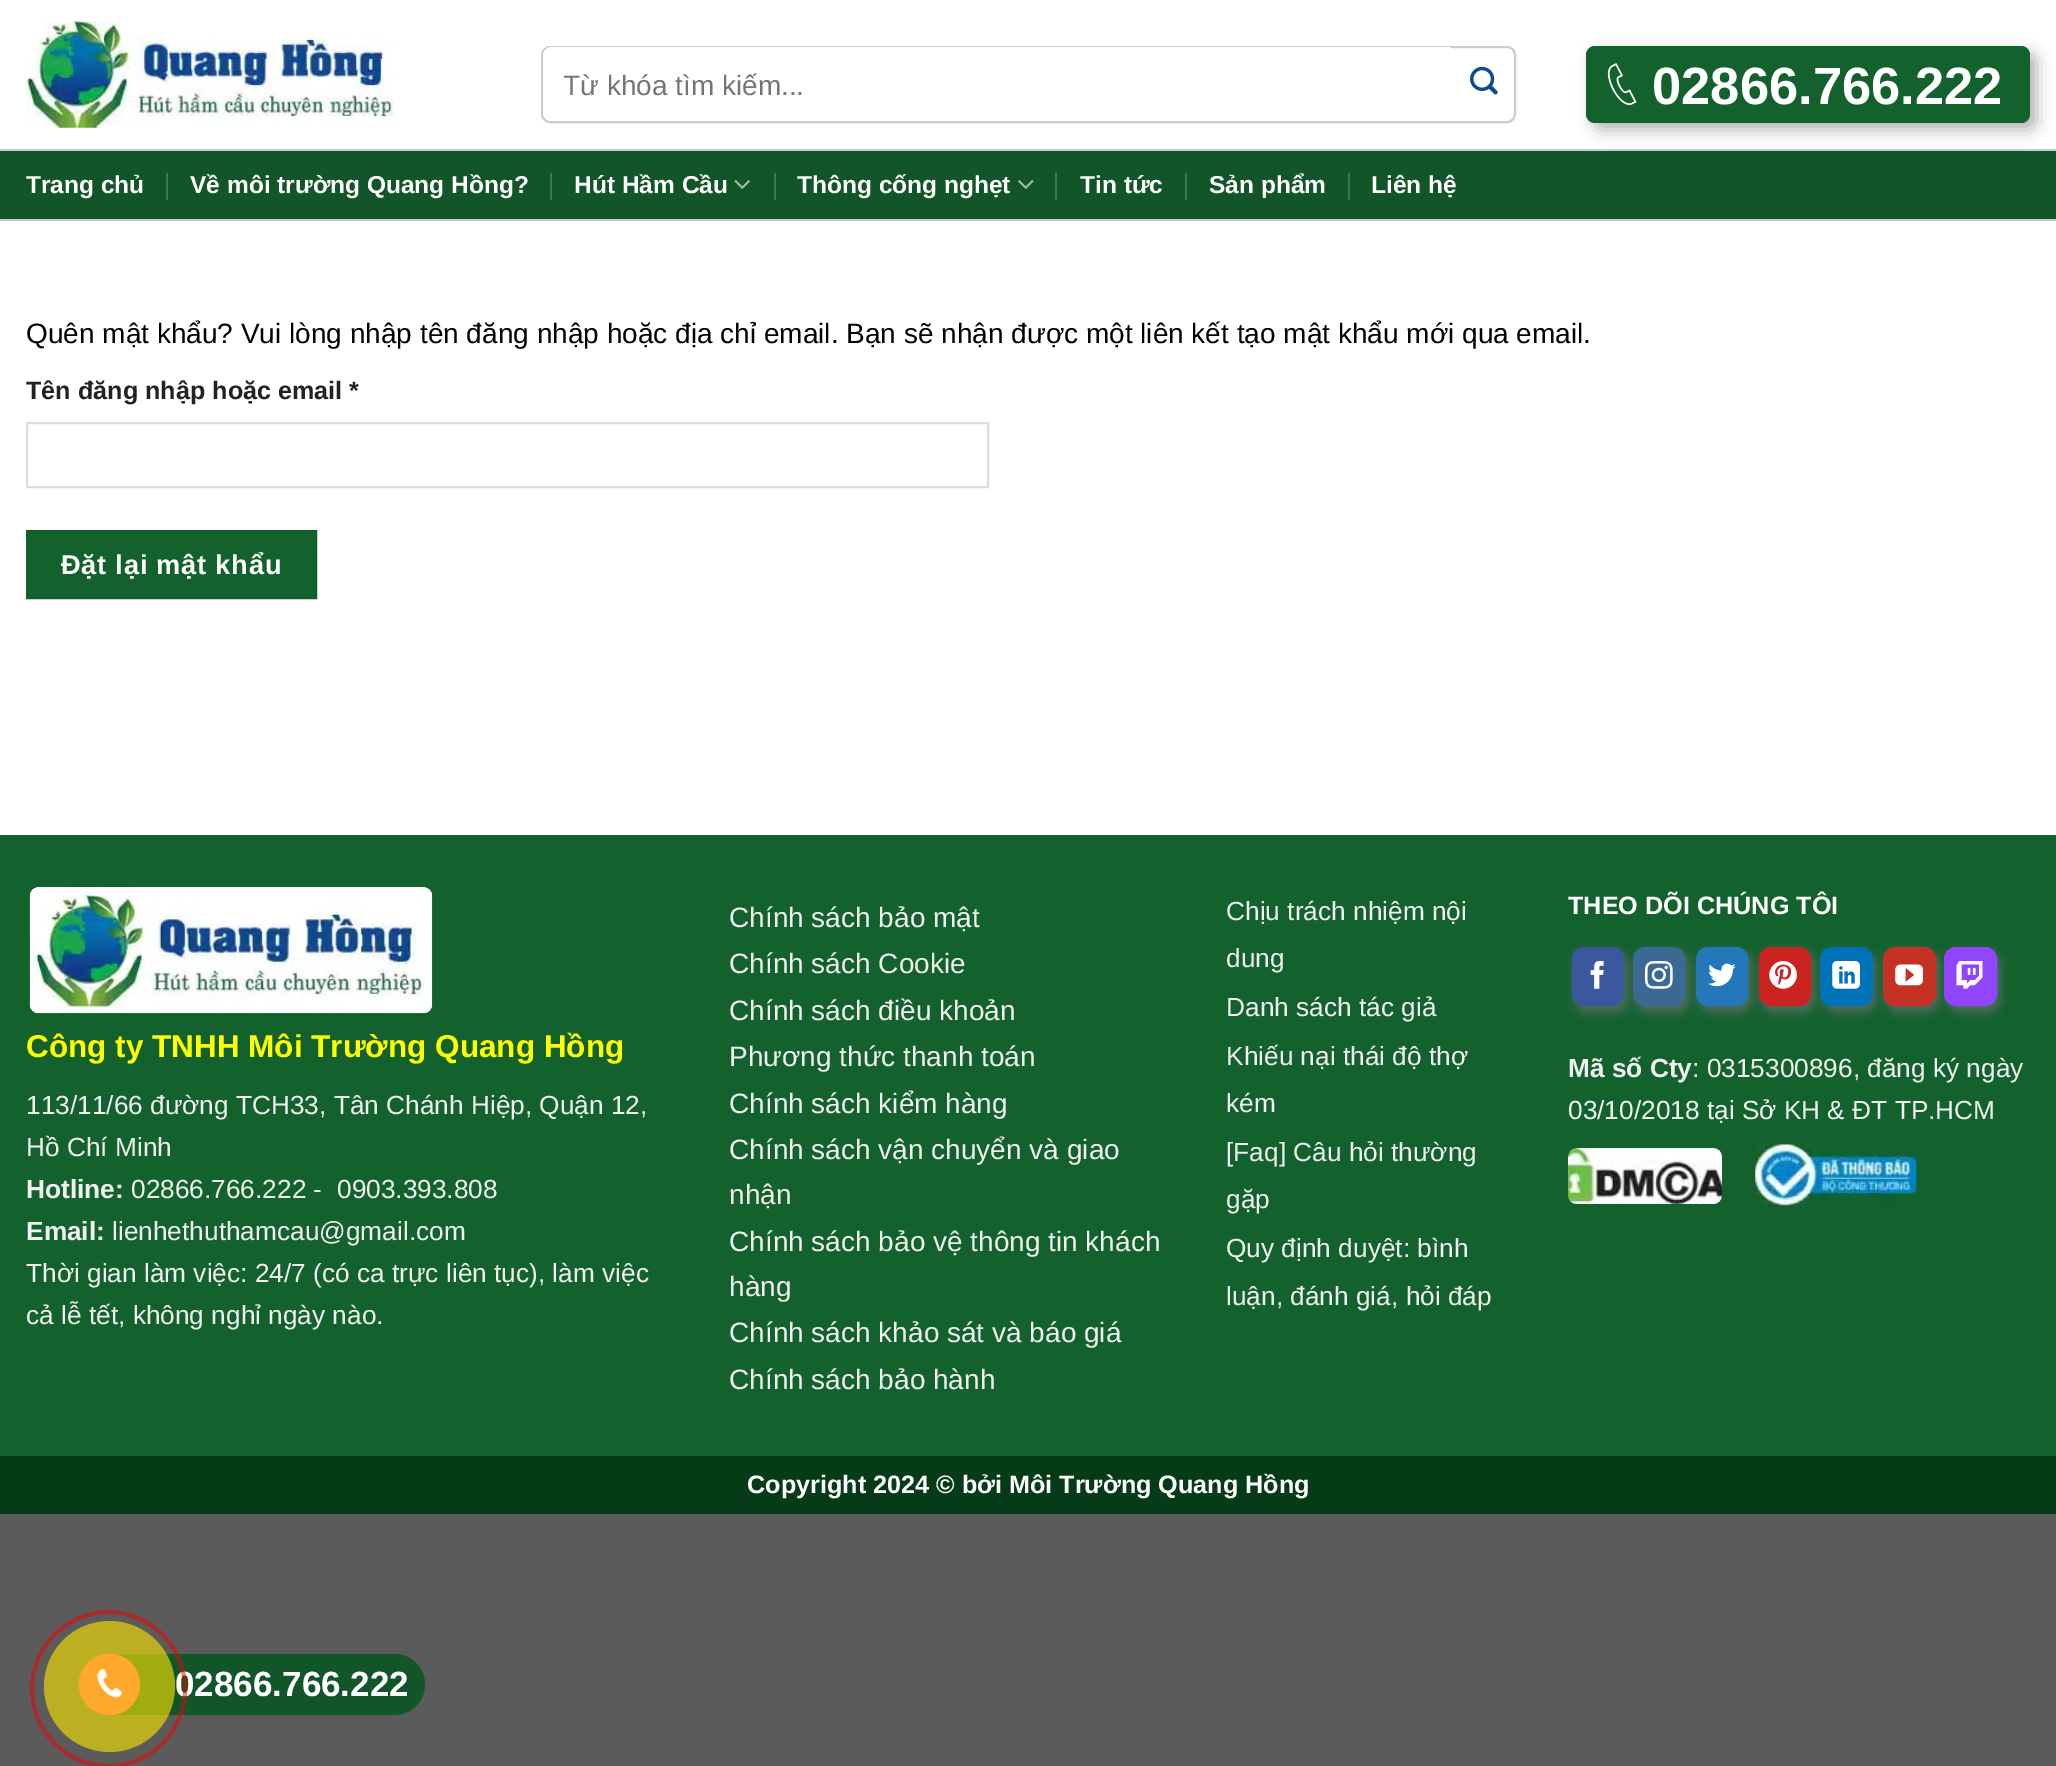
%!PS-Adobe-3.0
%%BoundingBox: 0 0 2056 1766
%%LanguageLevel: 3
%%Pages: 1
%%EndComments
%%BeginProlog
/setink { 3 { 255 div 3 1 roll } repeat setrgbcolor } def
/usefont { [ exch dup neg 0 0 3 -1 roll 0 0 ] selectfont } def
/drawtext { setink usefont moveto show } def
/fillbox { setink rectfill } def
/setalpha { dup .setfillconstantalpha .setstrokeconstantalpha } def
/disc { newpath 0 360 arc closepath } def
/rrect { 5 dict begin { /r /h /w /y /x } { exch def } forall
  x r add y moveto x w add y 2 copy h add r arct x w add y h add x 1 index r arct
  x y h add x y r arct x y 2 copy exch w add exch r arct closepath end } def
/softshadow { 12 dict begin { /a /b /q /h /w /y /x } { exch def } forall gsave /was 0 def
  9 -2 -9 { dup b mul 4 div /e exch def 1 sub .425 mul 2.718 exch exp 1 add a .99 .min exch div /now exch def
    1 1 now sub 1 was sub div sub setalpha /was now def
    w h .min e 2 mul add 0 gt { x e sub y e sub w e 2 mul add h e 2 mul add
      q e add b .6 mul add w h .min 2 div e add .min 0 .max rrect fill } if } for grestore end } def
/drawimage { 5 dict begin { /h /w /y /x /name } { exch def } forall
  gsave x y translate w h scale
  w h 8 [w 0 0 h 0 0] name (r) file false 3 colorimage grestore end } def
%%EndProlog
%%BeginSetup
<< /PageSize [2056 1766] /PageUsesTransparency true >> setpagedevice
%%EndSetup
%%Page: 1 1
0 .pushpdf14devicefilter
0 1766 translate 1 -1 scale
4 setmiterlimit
0 0 2056 1766 91 91 91 fillbox
0 0 2056 835 255 255 255 fillbox
(assets/img1.rgb) 26 21 368 107 drawimage
204 204 204 setink
2 setlinewidth
542 47 973 75 8 rrect stroke
255 255 255 setink
543 47 913 74 9 rrect fill
gsave
564 72 868 31 rectclip
(Từ khóa tìm kiếm...) 563 95 /LiberationSans-Regular 28 117 117 117 drawtext
grestore
(assets/img2.rgb) 1470 66 28 29 drawimage
0 151 2056 68 17 85 40 fillbox
0 149 2056 2 204 204 204 fillbox
176 176 176 setink
1593 53 444 77 9 8 1 softshadow
19 98 46 setink
1586 46 444 77 9 rrect fill
(assets/img3.rgb) 1607 63 30 42 drawimage
(02866.766.222) 1652 104 /LiberationSans-Bold 52.5 255 255 255 drawtext
0 219 2056 2 204 204 204 fillbox
(Trang chủ) 26 193 /LiberationSans-Bold 24.5 255 255 255 drawtext
166 173 2 27 65 119 83 fillbox
(Về môi trường Quang Hồng?) 190 193 /LiberationSans-Bold 24.5 255 255 255 drawtext
550 173 2 27 65 119 83 fillbox
(Hút Hầm Cầu) 574 193 /LiberationSans-Bold 24.5 255 255 255 drawtext
(assets/img4.rgb) 734 180 16 9 drawimage
774 173 2 27 65 119 83 fillbox
(Thông cống nghẹt) 797 193 /LiberationSans-Bold 24.5 255 255 255 drawtext
(assets/img5.rgb) 1018 180 16 9 drawimage
1055 173 2 27 65 119 83 fillbox
(Tin tức) 1080 193 /LiberationSans-Bold 24.5 255 255 255 drawtext
1185 173 2 27 65 119 83 fillbox
(Sản phẩm) 1209 193 /LiberationSans-Bold 24.5 255 255 255 drawtext
1348 173 2 27 65 119 83 fillbox
(Liên hệ) 1371 193 /LiberationSans-Bold 24.5 255 255 255 drawtext
(Quên mật khẩu? Vui lòng nhập tên đăng nhập hoặc địa chỉ email. Bạn sẽ nhận được một liên kết tạo mật khẩu mới qua email.) 26 343 /LiberationSans-Regular 28 0 0 0 drawtext
(Tên đăng nhập hoặc email *) 26 399 /LiberationSans-Bold 25.2 34 34 34 drawtext
221 221 221 setink
27 423 961 64 rectstroke
19 98 46 setink
27 531 moveto 316 531 lineto 316 598 lineto 27 598 lineto closepath gsave fill grestore
18 93 44 setink
stroke
/LiberationSans-Bold 27.25 usefont
255 255 255 setink
61 574 moveto 0.75 0 (Đặt lại mật khẩu) ashow
0 835 2056 621 19 98 46 fillbox
255 255 255 setink
30 887 402 126 9 rrect fill
(assets/img6.rgb) 29 887 404 127 drawimage
(Công ty TNHH Môi Trường Quang Hồng) 26 1057 /LiberationSans-Bold 31.5 255 255 0 drawtext
(113/11/66 đường TCH33, Tân Chánh Hiệp, Quận 12,) 26 1114 /LiberationSans-Regular 26.25 241 241 241 drawtext
(Hồ Chí Minh) 26 1156 /LiberationSans-Regular 26.25 241 241 241 drawtext
(Hotline:) 26 1198 /LiberationSans-Bold 26.25 241 241 241 drawtext
(02866.766.222 -) 131 1198 /LiberationSans-Regular 26.25 241 241 241 drawtext
(0903.393.808) 337 1198 /LiberationSans-Regular 26.25 241 241 241 drawtext
(Email:) 26 1240 /LiberationSans-Bold 26.25 241 241 241 drawtext
(lienhethuthamcau@gmail.com) 112 1240 /LiberationSans-Regular 26.25 241 241 241 drawtext
(Thời gian làm việc: 24/7 \(có ca trực liên tục\), làm việc) 26 1282 /LiberationSans-Regular 26.25 241 241 241 drawtext
(cả lễ tết, không nghỉ ngày nào.) 26 1324 /LiberationSans-Regular 26.25 241 241 241 drawtext
(Chính sách bảo mật) 729 927 /LiberationSans-Regular 28 241 241 241 drawtext
(Chính sách Cookie) 729 973 /LiberationSans-Regular 28 241 241 241 drawtext
(Chính sách điều khoản) 729 1020 /LiberationSans-Regular 28 241 241 241 drawtext
(Phương thức thanh toán) 729 1066 /LiberationSans-Regular 28 241 241 241 drawtext
(Chính sách kiểm hàng) 729 1113 /LiberationSans-Regular 28 241 241 241 drawtext
(Chính sách vận chuyển và giao) 729 1159 /LiberationSans-Regular 28 241 241 241 drawtext
(nhận) 729 1204 /LiberationSans-Regular 28 241 241 241 drawtext
(Chính sách bảo vệ thông tin khách) 729 1251 /LiberationSans-Regular 28 241 241 241 drawtext
(hàng) 729 1296 /LiberationSans-Regular 28 241 241 241 drawtext
(Chính sách khảo sát và báo giá) 729 1342 /LiberationSans-Regular 28 241 241 241 drawtext
(Chính sách bảo hành) 729 1389 /LiberationSans-Regular 28 241 241 241 drawtext
(Chịu trách nhiệm nội) 1226 920 /LiberationSans-Regular 26.25 241 241 241 drawtext
(dung) 1226 967 /LiberationSans-Regular 26.25 241 241 241 drawtext
(Danh sách tác giả) 1226 1016 /LiberationSans-Regular 26.25 241 241 241 drawtext
(Khiếu nại thái độ thợ) 1226 1065 /LiberationSans-Regular 26.25 241 241 241 drawtext
(kém) 1226 1112 /LiberationSans-Regular 26.25 241 241 241 drawtext
([Faq] Câu hỏi thường) 1226 1161 /LiberationSans-Regular 26.25 241 241 241 drawtext
(gặp) 1226 1208 /LiberationSans-Regular 26.25 241 241 241 drawtext
(Quy định duyệt: bình) 1226 1257 /LiberationSans-Regular 26.25 241 241 241 drawtext
(luận, đánh giá, hỏi đáp) 1226 1305 /LiberationSans-Regular 26.25 241 241 241 drawtext
(THEO DÕI CHÚNG TÔI) 1568 914 /LiberationSans-Bold 25.2 255 255 255 drawtext
112 113 114 setink
1575 952 53 60 12 5 0.69 softshadow
58 88 157 setink
1573 948 50 57 11 rrect gsave fill grestore
stroke
(assets/img7.rgb) 1590 961 14 28 drawimage
112 113 114 setink
1636 952 53 60 12 5 0.69 softshadow
59 105 148 setink
1634 948 50 57 11 rrect gsave fill grestore
stroke
(assets/img8.rgb) 1645 961 28 28 drawimage
112 113 114 setink
1699 952 53 60 12 5 0.69 softshadow
36 120 186 setink
1697 948 50 57 11 rrect gsave fill grestore
stroke
(assets/img9.rgb) 1708 963 28 24 drawimage
112 113 114 setink
1762 952 53 60 12 5 0.69 softshadow
203 35 32 setink
1760 948 50 57 11 rrect gsave fill grestore
stroke
(assets/img10.rgb) 1769 961 28 28 drawimage
112 113 114 setink
1824 952 52 60 12 5 0.69 softshadow
0 114 183 setink
1821 948 51 57 11 rrect gsave fill grestore
stroke
(assets/img11.rgb) 1832 961 28 28 drawimage
112 113 114 setink
1887 952 52 60 12 5 0.69 softshadow
195 50 35 setink
1884 948 51 57 11 rrect gsave fill grestore
stroke
(assets/img12.rgb) 1895 964 28 22 drawimage
112 113 114 setink
1948 952 52 60 12 5 0.69 softshadow
145 70 254 setink
1945 948 51 57 11 rrect gsave fill grestore
stroke
(assets/img13.rgb) 1956 961 27 28 drawimage
(Mã số Cty) 1568 1077 /LiberationSans-Bold 26.25 241 241 241 drawtext
(: 0315300896, đăng ký ngày) 1692 1077 /LiberationSans-Regular 26.25 241 241 241 drawtext
(03/10/2018 tại Sở KH & ĐT TP.HCM) 1568 1119 /LiberationSans-Regular 26.25 241 241 241 drawtext
(assets/img14.rgb) 1568 1148 154 56 drawimage
(assets/img15.rgb) 1755 1144 162 62 drawimage
0 1456 2056 58 5 59 23 fillbox
(Copyright 2024 © bởi Môi Trường Quang Hồng) 747 1493 /LiberationSans-Bold 25.2 255 255 255 drawtext
17 85 40 setink
79 1654 346 61 30.5 rrect fill
(02866.766.222) 175 1696 /LiberationSans-Bold 35 255 255 255 drawtext
0.5 setalpha
242 0 0 setink
4 setlinewidth
32 1612 153 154 76.5 rrect stroke
0.64 setalpha
242 223 0 setink
109.5 1686.5 65.5 disc fill
1 setalpha
255 169 44 setink
109.5 1684.5 30.5 disc fill
(assets/img16.rgb) 78 1653 62 62 drawimage
.poppdf14devicefilter showpage
%%EOF
